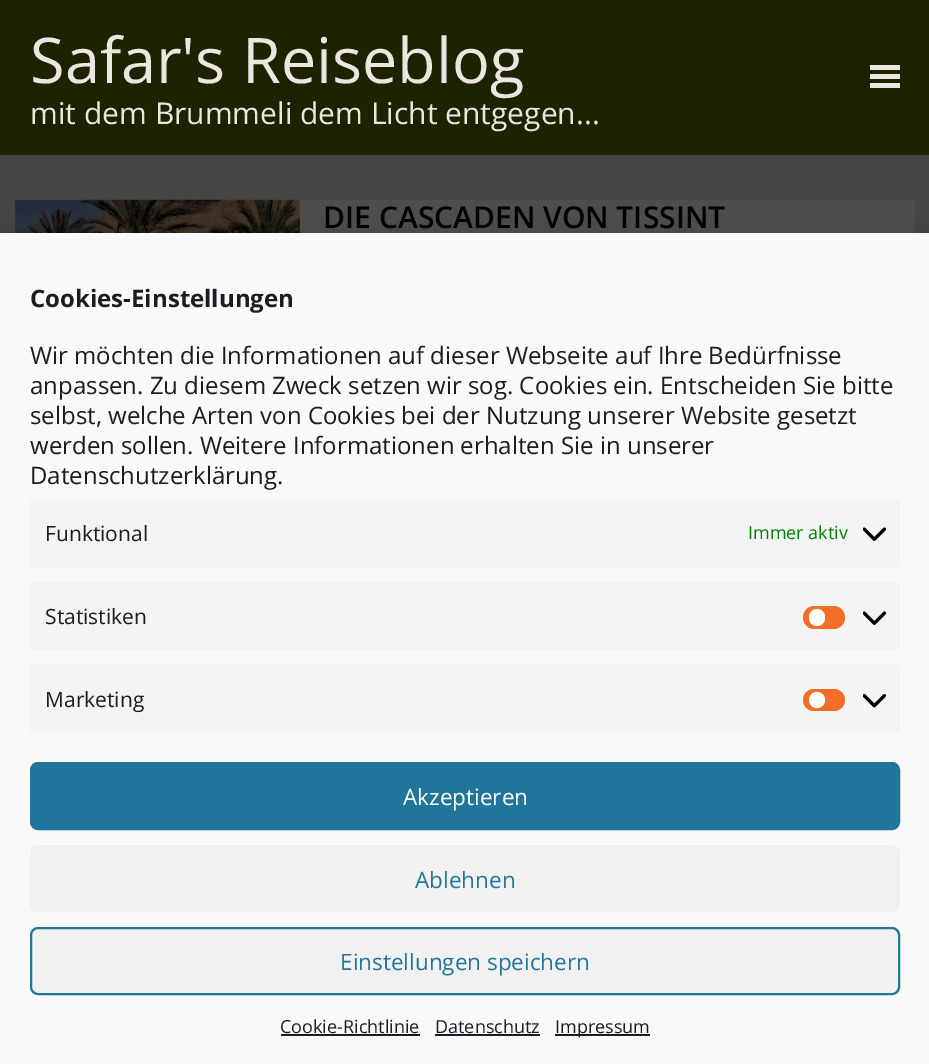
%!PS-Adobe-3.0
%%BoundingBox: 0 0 929 1064
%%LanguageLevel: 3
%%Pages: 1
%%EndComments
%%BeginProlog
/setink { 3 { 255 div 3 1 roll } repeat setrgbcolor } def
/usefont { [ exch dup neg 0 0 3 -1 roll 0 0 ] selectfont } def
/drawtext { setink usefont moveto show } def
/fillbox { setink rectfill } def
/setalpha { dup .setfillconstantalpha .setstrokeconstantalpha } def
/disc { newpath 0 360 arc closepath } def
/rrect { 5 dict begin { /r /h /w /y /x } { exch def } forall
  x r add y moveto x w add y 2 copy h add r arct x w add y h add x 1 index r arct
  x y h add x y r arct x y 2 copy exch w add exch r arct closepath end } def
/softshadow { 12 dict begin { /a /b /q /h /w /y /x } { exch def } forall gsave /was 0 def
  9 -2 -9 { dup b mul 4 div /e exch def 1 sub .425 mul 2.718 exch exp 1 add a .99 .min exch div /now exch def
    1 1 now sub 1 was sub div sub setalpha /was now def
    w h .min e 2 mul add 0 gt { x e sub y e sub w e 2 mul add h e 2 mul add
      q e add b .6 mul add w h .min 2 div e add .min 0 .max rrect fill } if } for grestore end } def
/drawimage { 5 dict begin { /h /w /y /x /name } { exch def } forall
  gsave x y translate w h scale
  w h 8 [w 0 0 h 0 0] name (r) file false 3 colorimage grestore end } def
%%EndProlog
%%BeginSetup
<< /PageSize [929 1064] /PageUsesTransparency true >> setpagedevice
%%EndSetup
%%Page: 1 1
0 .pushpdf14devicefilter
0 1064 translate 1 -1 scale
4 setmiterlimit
0 0 929 1064 71 69 67 fillbox
0 0 929 155 29 35 0 fillbox
(Safar's Reiseblog) 30 83 /OpenSans-Regular 63 235 231 224 drawtext
(mit dem Brummeli dem Licht entgegen...) 30 124 /OpenSans-Regular 30 235 231 224 drawtext
870 65 30 5 235 231 224 fillbox
870 74 30 5 235 231 224 fillbox
870 83 30 5 235 231 224 fillbox
300 200 615 33 77 77 77 fillbox
(assets/img1.rgb) 15 199 285 34 drawimage
(DIE CASCADEN VON TISSINT) 323 228 /OpenSans-SemiBold 30 0 0 0 drawtext
0 248 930 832 0 15 0.19 softshadow
0 233 929 831 249 249 249 fillbox
(Cookies-Einstellungen) 30 307 /OpenSans-Bold 24 25 30 35 drawtext
(Wir möchten die Informationen auf dieser Webseite auf Ihre Bedürfnisse) 30 364 /OpenSans-Regular 24 25 30 35 drawtext
(anpassen. Zu diesem Zweck setzen wir sog. Cookies ein. Entscheiden Sie bitte) 30 394 /OpenSans-Regular 24 25 30 35 drawtext
(selbst, welche Arten von Cookies bei der Nutzung unserer Website gesetzt) 30 424 /OpenSans-Regular 24 25 30 35 drawtext
(werden sollen. Weitere Informationen erhalten Sie in unserer) 30 454 /OpenSans-Regular 24 25 30 35 drawtext
(Datenschutzerklärung.) 30 484 /OpenSans-Regular 24 25 30 35 drawtext
30 500 870 67 244 244 244 fillbox
(Funktional) 45 541 /OpenSans-Regular 21 25 30 35 drawtext
(Immer aktiv) 748 539 /OpenSans-Regular 18 0 128 0 drawtext
(assets/img2.rgb) 863 527 24 14 drawimage
30 582 870 68 244 244 244 fillbox
(Statistiken) 45 624 /OpenSans-Regular 21 25 30 35 drawtext
245 110 40 setink
803 606 42 23 11.5 rrect fill
255 255 255 setink
809 609 16 17 8 rrect fill
(assets/img2.rgb) 863 611 24 14 drawimage
30 665 870 67 244 244 244 fillbox
(Marketing) 45 707 /OpenSans-Regular 21 25 30 35 drawtext
245 110 40 setink
803 689 42 22 11 rrect fill
255 255 255 setink
817 700 8 disc fill
(assets/img3.rgb) 863 694 24 14 drawimage
33 117 155 setink
31 763 868 66 7 rrect gsave fill grestore
2 setlinewidth
stroke
(Akzeptieren) 403 805 /OpenSans-Regular 22.5 255 255 255 drawtext
241 241 241 setink
30 845 870 67 8 rrect fill
(Ablehnen) 415 888 /OpenSans-Regular 22.5 33 117 155 drawtext
241 241 241 setink
31 928 868 66 7 rrect gsave fill grestore
33 117 155 setink
stroke
(Einstellungen speichern) 340 970 /OpenSans-Regular 22.5 33 117 155 drawtext
(Cookie-Richtlinie) 280 1033 /OpenSans-Regular 18 25 30 35 drawtext
281 1034 139 2 25 30 35 fillbox
(Datenschutz) 435 1033 /OpenSans-Regular 18 25 30 35 drawtext
435 1034 105 2 25 30 35 fillbox
555 1034 95 2 25 30 35 fillbox
(Impressum) 555 1033 /OpenSans-Regular 18 25 30 35 drawtext
.poppdf14devicefilter showpage
%%EOF
